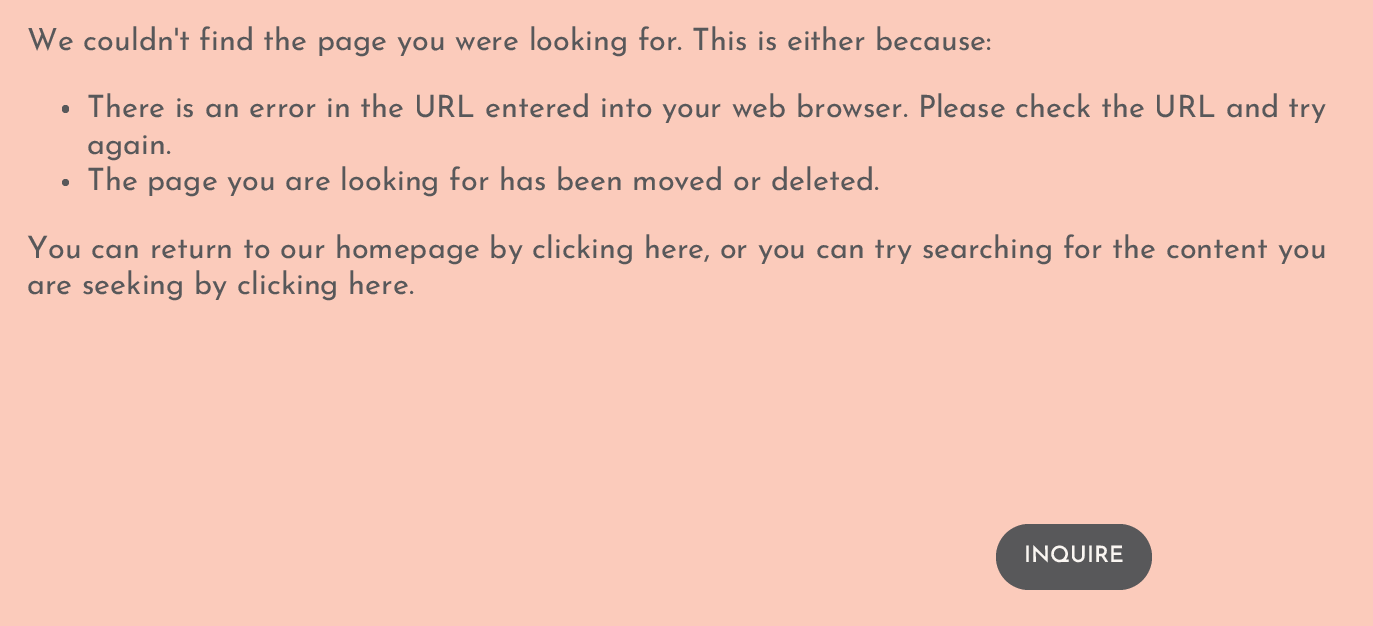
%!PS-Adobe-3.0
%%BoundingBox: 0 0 1373 626
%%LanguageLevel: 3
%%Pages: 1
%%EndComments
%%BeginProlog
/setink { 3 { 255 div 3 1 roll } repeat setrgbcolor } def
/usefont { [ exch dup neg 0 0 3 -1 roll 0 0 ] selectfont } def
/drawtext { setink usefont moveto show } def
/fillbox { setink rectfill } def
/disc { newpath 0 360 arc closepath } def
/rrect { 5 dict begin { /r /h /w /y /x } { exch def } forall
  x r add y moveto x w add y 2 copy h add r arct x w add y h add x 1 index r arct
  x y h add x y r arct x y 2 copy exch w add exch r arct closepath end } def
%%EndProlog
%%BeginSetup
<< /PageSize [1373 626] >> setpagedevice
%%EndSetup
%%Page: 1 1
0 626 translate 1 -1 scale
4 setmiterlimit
0 0 1373 626 251 203 187 fillbox
(We couldn't find the page you were looking for. This is either because:) 27 50 /JosefinSans-Regular 30.6 88 88 90 drawtext
62 105 7 8 3.5 rrect fill
(There is an error in the URL entered into your web browser. Please check the URL and try) 87 117 /JosefinSans-Regular 30.6 88 88 90 drawtext
(again.) 87 154 /JosefinSans-Regular 30.6 88 88 90 drawtext
65.5 182.5 3.5 disc fill
(The page you are looking for has been moved or deleted.) 87 190 /JosefinSans-Regular 30.6 88 88 90 drawtext
(You can return to our homepage by clicking here, or you can try searching for the content you) 27 258 /JosefinSans-Regular 30.6 88 88 90 drawtext
(are seeking by clicking here.) 27 294 /JosefinSans-Regular 30.6 88 88 90 drawtext
996 524 156 66 33 rrect fill
(INQUIRE) 1024 562 /JosefinSans-SemiBold 22.5 250 246 242 drawtext
showpage
%%EOF
